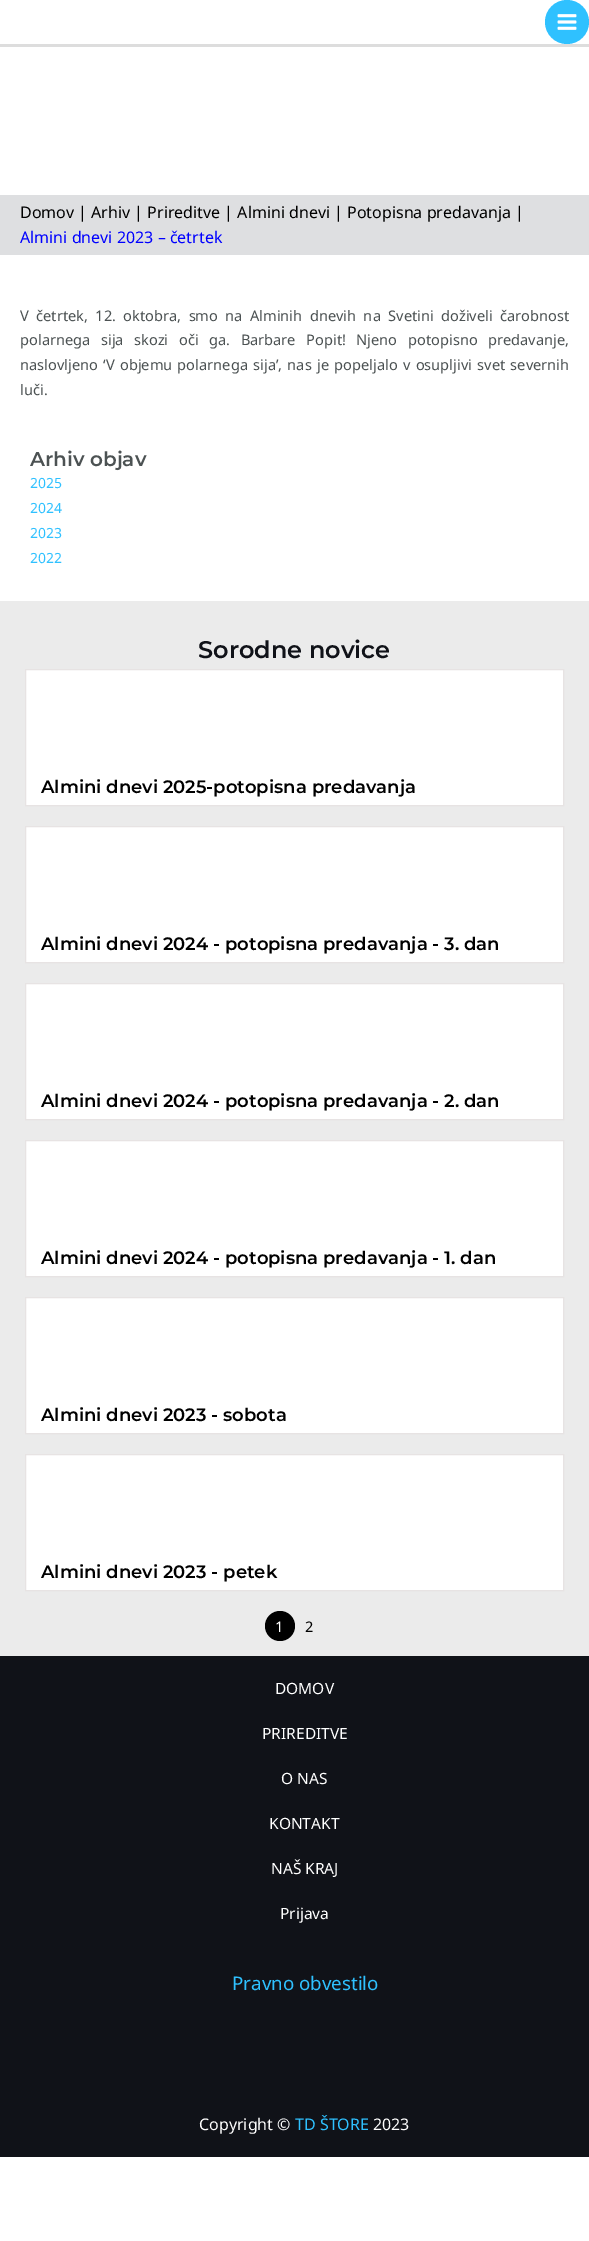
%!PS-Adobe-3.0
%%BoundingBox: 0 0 589 2241
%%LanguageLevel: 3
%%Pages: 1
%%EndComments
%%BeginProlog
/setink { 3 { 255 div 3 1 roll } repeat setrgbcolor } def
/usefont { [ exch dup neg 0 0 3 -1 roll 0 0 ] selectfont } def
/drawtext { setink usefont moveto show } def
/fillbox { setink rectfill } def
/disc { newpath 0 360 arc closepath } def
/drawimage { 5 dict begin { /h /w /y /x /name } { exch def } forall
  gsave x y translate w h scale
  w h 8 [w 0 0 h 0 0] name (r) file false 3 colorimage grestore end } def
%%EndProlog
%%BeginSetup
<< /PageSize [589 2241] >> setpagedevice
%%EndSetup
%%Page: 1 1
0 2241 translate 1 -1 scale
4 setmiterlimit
0 0 589 2241 255 255 255 fillbox
0 44 589 3 221 221 221 fillbox
47 193 255 setink
567 22 22 disc fill
(assets/img1.rgb) 557 14 20 16 drawimage
0 195 589 60 222 223 225 fillbox
(Domov | Arhiv | Prireditve | Almini dnevi | Potopisna predavanja |) 20 218 /NotoSans-Regular 16 0 0 0 drawtext
(Almini dnevi 2023 – četrtek) 20 243 /NotoSans-Regular 16 0 0 255 drawtext
/NotoSans-Regular 14.6 usefont
76 82 83 setink
20 321 moveto 3.6 0 32 (V četrtek, 12. oktobra, smo na Alminih dnevih na Svetini doživeli čarobnost) widthshow
20 345 moveto 6.75 0 32 (polarnega sija skozi oči ga. Barbare Popit! Njeno potopisno predavanje,) widthshow
20 370 moveto 1.5 0 32 (naslovljeno ‘V objemu polarnega sija’, nas je popeljalo v osupljivi svet severnih) widthshow
(luči.) 20 395 /NotoSans-Regular 14.6 76 82 83 drawtext
(Arhiv objav) 30 466 /Montserrat-SemiBold 20 76 82 83 drawtext
(2025) 30 488 /NotoSans-Regular 14 47 193 255 drawtext
(2024) 30 513 /NotoSans-Regular 14 47 193 255 drawtext
(2023) 30 538 /NotoSans-Regular 14 47 193 255 drawtext
(2022) 30 563 /NotoSans-Regular 14 47 193 255 drawtext
0 601 589 1055 235 235 235 fillbox
(Sorodne novice) 198 658 /Montserrat-SemiBold 24 16 18 24 drawtext
255 255 255 setink
25.5 669.5 moveto 563.5 669.5 lineto 563.5 805.5 lineto 25.5 805.5 lineto closepath gsave fill grestore
231 227 227 setink
stroke
(Almini dnevi 2025-potopisna predavanja) 41 793 /Montserrat-SemiBold 18 0 0 0 drawtext
255 255 255 setink
25.5 826.5 moveto 563.5 826.5 lineto 563.5 962.5 lineto 25.5 962.5 lineto closepath gsave fill grestore
231 227 227 setink
stroke
(Almini dnevi 2024 - potopisna predavanja - 3. dan) 41 950 /Montserrat-SemiBold 18 0 0 0 drawtext
255 255 255 setink
25.5 983.5 moveto 563.5 983.5 lineto 563.5 1119.5 lineto 25.5 1119.5 lineto closepath gsave fill grestore
231 227 227 setink
stroke
(Almini dnevi 2024 - potopisna predavanja - 2. dan) 41 1107 /Montserrat-SemiBold 18 0 0 0 drawtext
255 255 255 setink
25.5 1140.5 moveto 563.5 1140.5 lineto 563.5 1276.5 lineto 25.5 1276.5 lineto closepath gsave fill grestore
231 227 227 setink
stroke
(Almini dnevi 2024 - potopisna predavanja - 1. dan) 41 1264 /Montserrat-SemiBold 18 0 0 0 drawtext
255 255 255 setink
25.5 1297.5 moveto 563.5 1297.5 lineto 563.5 1433.5 lineto 25.5 1433.5 lineto closepath gsave fill grestore
231 227 227 setink
stroke
(Almini dnevi 2023 - sobota) 41 1421 /Montserrat-SemiBold 18 0 0 0 drawtext
255 255 255 setink
25.5 1454.5 moveto 563.5 1454.5 lineto 563.5 1590.5 lineto 25.5 1590.5 lineto closepath gsave fill grestore
231 227 227 setink
stroke
(Almini dnevi 2023 - petek) 41 1578 /Montserrat-SemiBold 18 0 0 0 drawtext
280 1626 15 disc fill
(1) 275 1632 /NotoSans-Regular 14.6 255 255 255 drawtext
(2) 305 1632 /NotoSans-Regular 14.6 0 0 0 drawtext
0 1656 589 501 16 18 24 fillbox
(DOMOV) 275 1694 /NotoSans-Regular 15.5 255 255 255 drawtext
(PRIREDITVE) 262 1739 /NotoSans-Regular 15.5 255 255 255 drawtext
(O NAS) 281 1784 /NotoSans-Regular 15.5 255 255 255 drawtext
(KONTAKT) 269 1829 /NotoSans-Regular 15.5 255 255 255 drawtext
(NAŠ KRAJ) 271 1874 /NotoSans-Regular 15.5 255 255 255 drawtext
(Prijava) 280 1919 /NotoSans-Regular 15.5 255 255 255 drawtext
(Pravno obvestilo) 232 1990 /NotoSans-Regular 18.75 47 193 255 drawtext
(Copyright ©) 199 2130 /NotoSans-Regular 16 255 255 255 drawtext
(TD ŠTORE) 295 2130 /NotoSans-Regular 16 47 193 255 drawtext
(2023) 373 2130 /NotoSans-Regular 16 255 255 255 drawtext
showpage
%%EOF
